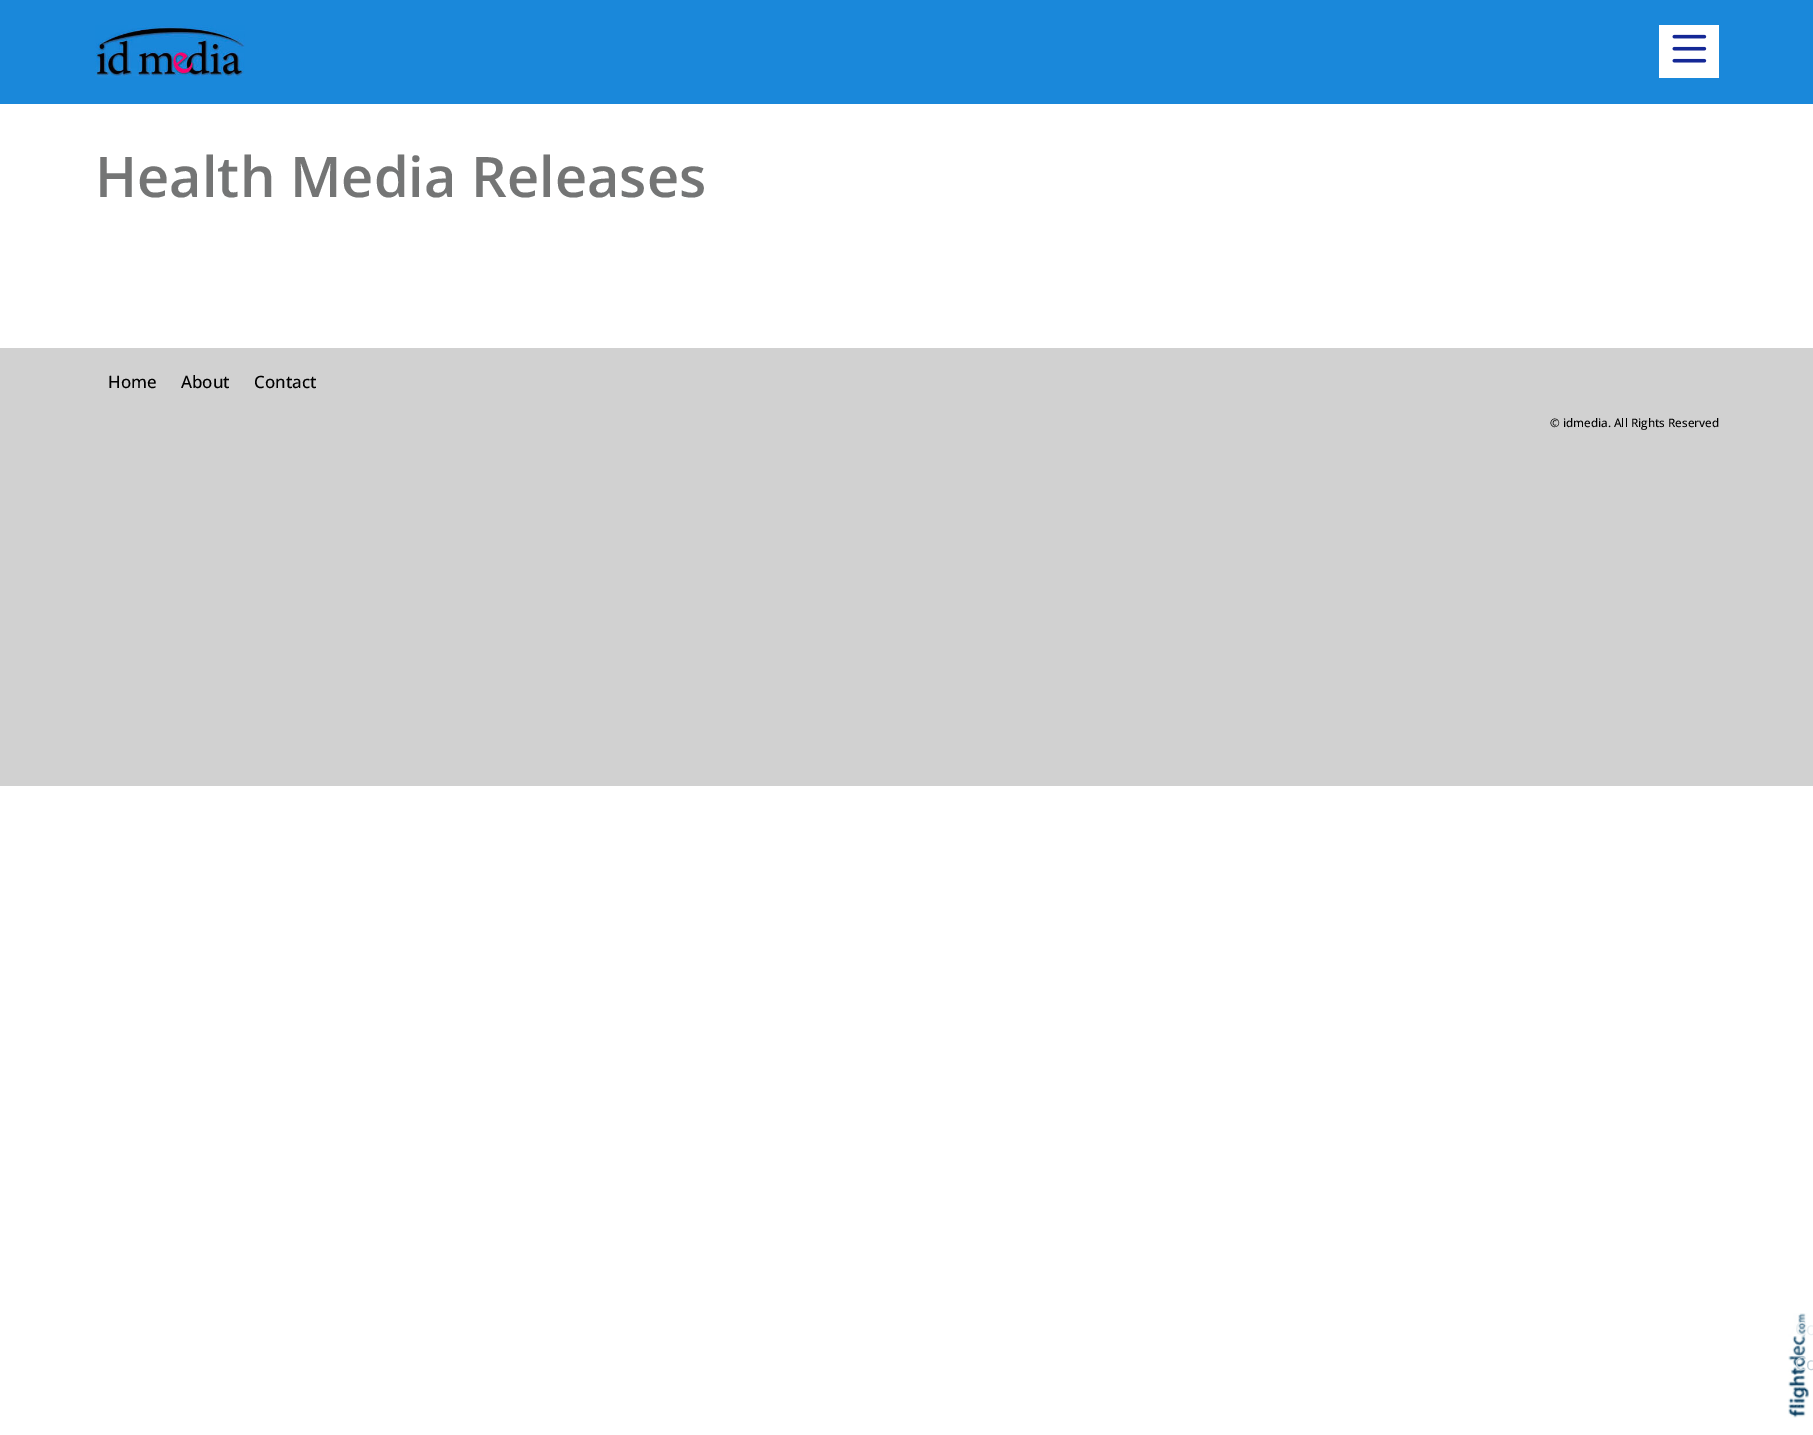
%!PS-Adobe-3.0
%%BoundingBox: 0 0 1813 1435
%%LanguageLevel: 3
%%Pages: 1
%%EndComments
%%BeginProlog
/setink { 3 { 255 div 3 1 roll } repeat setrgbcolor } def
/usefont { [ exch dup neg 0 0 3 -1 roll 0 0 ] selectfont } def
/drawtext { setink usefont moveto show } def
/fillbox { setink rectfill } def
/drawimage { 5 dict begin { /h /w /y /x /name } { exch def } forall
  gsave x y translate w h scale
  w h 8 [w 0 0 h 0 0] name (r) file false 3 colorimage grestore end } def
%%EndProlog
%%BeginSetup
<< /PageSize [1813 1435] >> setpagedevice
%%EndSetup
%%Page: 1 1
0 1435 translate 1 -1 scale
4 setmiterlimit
0 0 1813 1435 255 255 255 fillbox
0 0 1813 104 26 136 218 fillbox
(assets/img1.rgb) 95 25 150 53 drawimage
1659 25 60 53 255 255 255 fillbox
(assets/img2.rgb) 1672 34 35 29 drawimage
(Health Media Releases) 95 197 /OpenSans-SemiBold 56 116 117 117 drawtext
0 348 1813 438 209 209 209 fillbox
(Home) 108 388 /OpenSans-Medium 17 0 0 0 drawtext
(About) 181 388 /OpenSans-Medium 17 0 0 0 drawtext
(Contact) 254 388 /OpenSans-Medium 17 0 0 0 drawtext
(© idmedia. All Rights Reserved) 1550 427 /OpenSans-Medium 11.7 0 0 0 drawtext
(assets/img3.rgb) 1788 1313 21 105 drawimage
(Co) 1795 1335 /OpenSans-Regular 18 233 239 241 drawtext
(Co) 1795 1370 /OpenSans-Regular 18 196 209 217 drawtext
showpage
%%EOF
